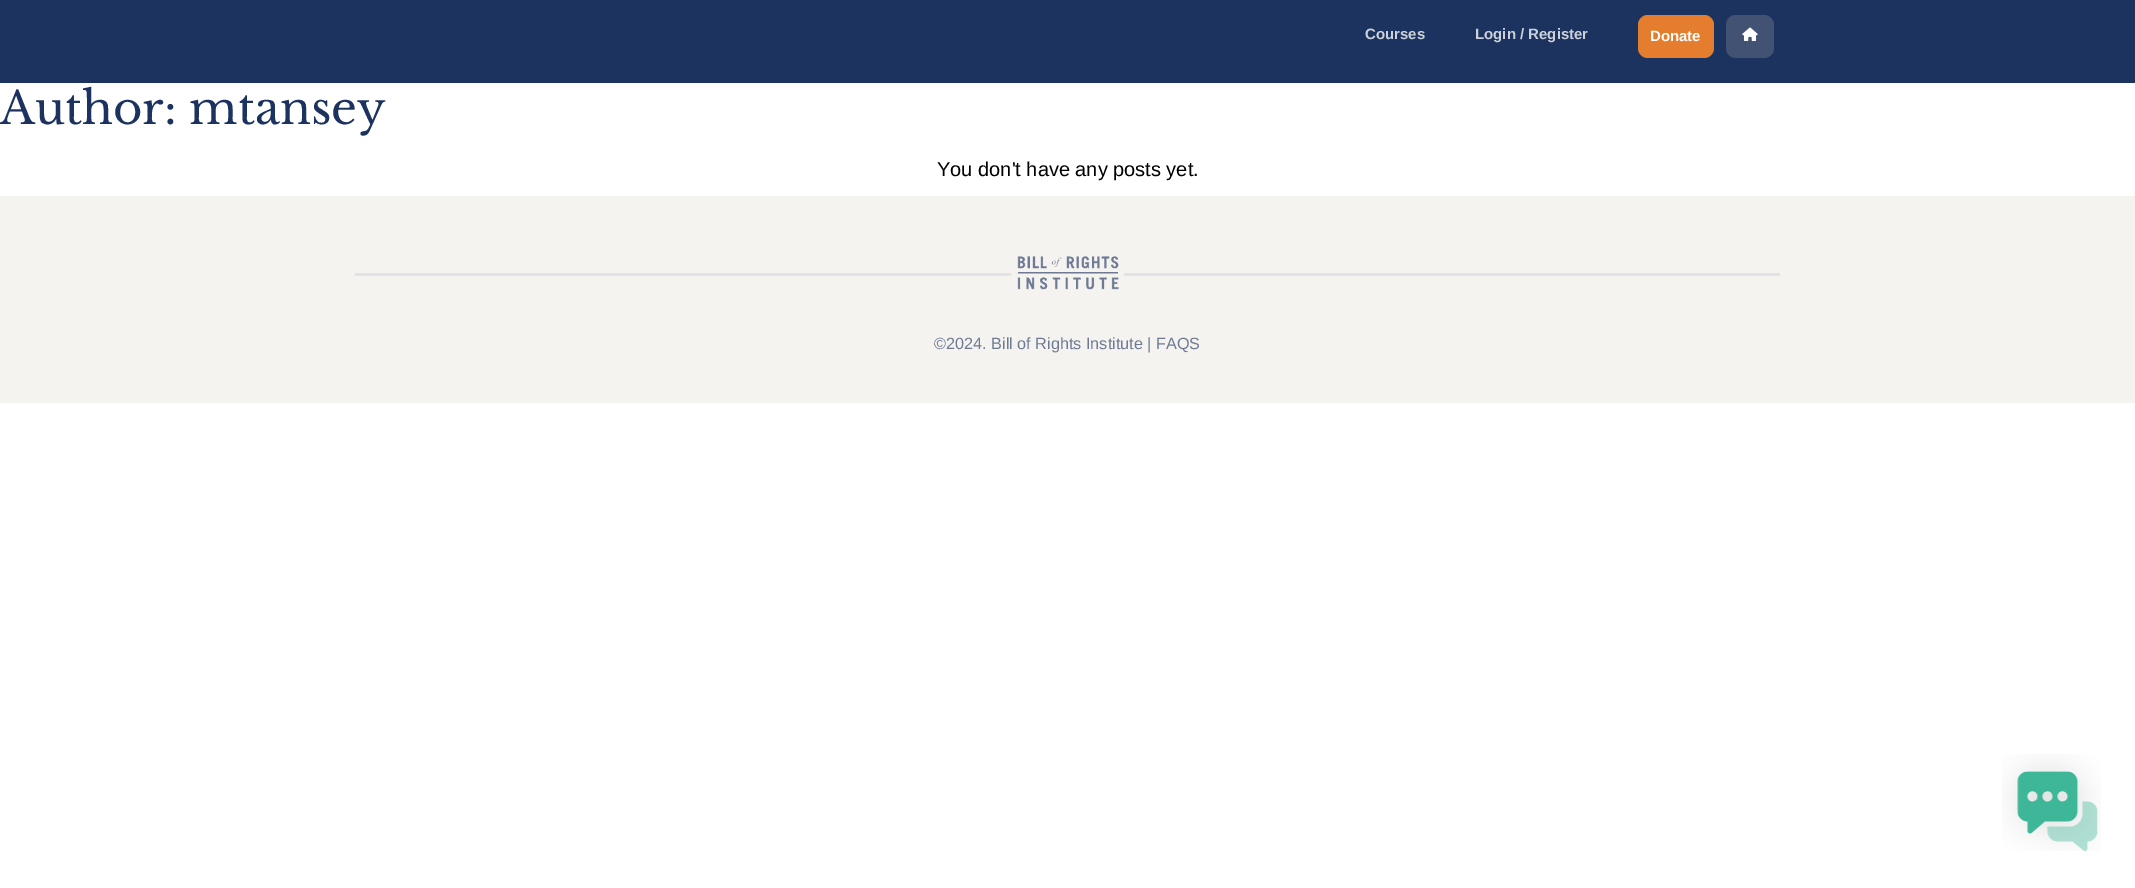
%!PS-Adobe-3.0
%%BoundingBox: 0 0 2135 888
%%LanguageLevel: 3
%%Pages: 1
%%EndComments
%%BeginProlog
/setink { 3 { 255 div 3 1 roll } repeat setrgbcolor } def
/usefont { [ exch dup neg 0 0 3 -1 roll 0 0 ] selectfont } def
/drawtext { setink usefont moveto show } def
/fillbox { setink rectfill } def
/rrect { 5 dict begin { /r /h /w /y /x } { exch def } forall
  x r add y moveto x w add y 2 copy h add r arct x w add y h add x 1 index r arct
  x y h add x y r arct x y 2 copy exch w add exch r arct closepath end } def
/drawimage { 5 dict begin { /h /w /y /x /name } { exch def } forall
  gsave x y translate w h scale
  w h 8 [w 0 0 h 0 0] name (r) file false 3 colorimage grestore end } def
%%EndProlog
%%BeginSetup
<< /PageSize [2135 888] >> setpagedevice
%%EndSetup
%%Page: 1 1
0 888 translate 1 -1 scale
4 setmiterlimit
0 0 2135 888 255 255 255 fillbox
0 0 2135 83 28 51 96 fillbox
(Courses) 1365 39 /LiberationSans-Bold 15 204 208 218 drawtext
(Login / Register) 1475 39 /LiberationSans-Bold 15 204 208 218 drawtext
228 125 46 setink
1638 15 76 43 10 rrect fill
(Donate) 1650 41 /LiberationSans-Bold 15 255 255 255 drawtext
66 82 115 setink
1726 15 48 43 10 rrect fill
(assets/img1.rgb) 1742 27 16 14 drawimage
(Author: mtansey) 0 124 /LibreBaskerville-Regular 45 28 51 96 drawtext
(You don't have any posts yet.) 937 176 /LiberationSans-Regular 20 0 0 0 drawtext
0 196 2135 207 245 243 240 fillbox
355 273 1425 3 227 227 228 fillbox
(assets/img2.rgb) 1011 256 113 34 drawimage
(©2024. Bill of Rights Institute | FAQS) 934 349 /LiberationSans-Regular 16.25 110 122 148 drawtext
(assets/img3.rgb) 2002 754 99 97 drawimage
showpage
%%EOF
